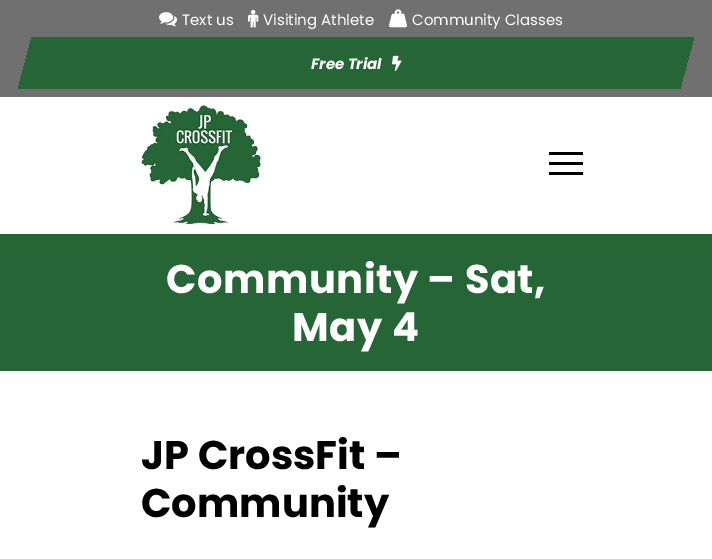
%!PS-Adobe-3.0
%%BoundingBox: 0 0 712 559
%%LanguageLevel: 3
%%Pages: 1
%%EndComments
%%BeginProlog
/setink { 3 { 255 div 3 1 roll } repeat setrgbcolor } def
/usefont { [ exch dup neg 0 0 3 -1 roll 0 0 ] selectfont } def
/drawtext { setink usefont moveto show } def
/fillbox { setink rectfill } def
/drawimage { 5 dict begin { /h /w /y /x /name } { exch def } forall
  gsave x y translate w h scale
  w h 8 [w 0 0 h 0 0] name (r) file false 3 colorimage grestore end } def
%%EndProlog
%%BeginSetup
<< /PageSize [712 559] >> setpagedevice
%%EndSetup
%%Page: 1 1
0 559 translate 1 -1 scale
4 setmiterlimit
0 0 712 559 255 255 255 fillbox
0 0 712 97 112 112 112 fillbox
(assets/img1.rgb) 159 12 18 15 drawimage
(Text us) 182 25 /Poppins-Regular 15 255 255 255 drawtext
(assets/img2.rgb) 248 9 11 19 drawimage
(Visiting Athlete) 263 25 /Poppins-Regular 15 255 255 255 drawtext
(assets/img3.rgb) 389 9 18 19 drawimage
(Community Classes) 412 25 /Poppins-Regular 15 255 255 255 drawtext
gsave 32 37 moveto 694 37 lineto 680 89 lineto 18 89 lineto closepath clip newpath
<< /ShadingType 2 /ColorSpace /DeviceRGB /Coords [-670 63 687 63] /Extend [true true] /Function << /FunctionType 3 /Domain [0 1] /Functions [<< /FunctionType 2 /Domain [0 1] /C0 [0.439 0.439 0.439] /C1 [0 0 0] /N 1 >> << /FunctionType 2 /Domain [0 1] /C0 [0.149 0.396 0.212] /C1 [0.149 0.396 0.212] /N 1 >>] /Bounds [0.5] /Encode [0 1 0 1] >> >> shfill grestore
(Free Trial) 311 69 /Poppins-BoldItalic 15 255 255 255 drawtext
(assets/img4.rgb) 392 55 10 16 drawimage
(assets/img5.rgb) 141 105 120 119 drawimage
549 152 34 3 0 0 0 fillbox
549 162 34 3 0 0 0 fillbox
549 172 34 3 0 0 0 fillbox
0 234 712 137 38 101 54 fillbox
/Poppins-Bold 40 usefont
255 255 255 setink
166 293 moveto 0.5 0 (Community – Sat,) ashow
292 341 moveto 0.5 0 (May 4) ashow
(JP CrossFit –) 141 469 /Poppins-Bold 40 0 0 0 drawtext
(Community) 141 517 /Poppins-Bold 40 0 0 0 drawtext
showpage
%%EOF
